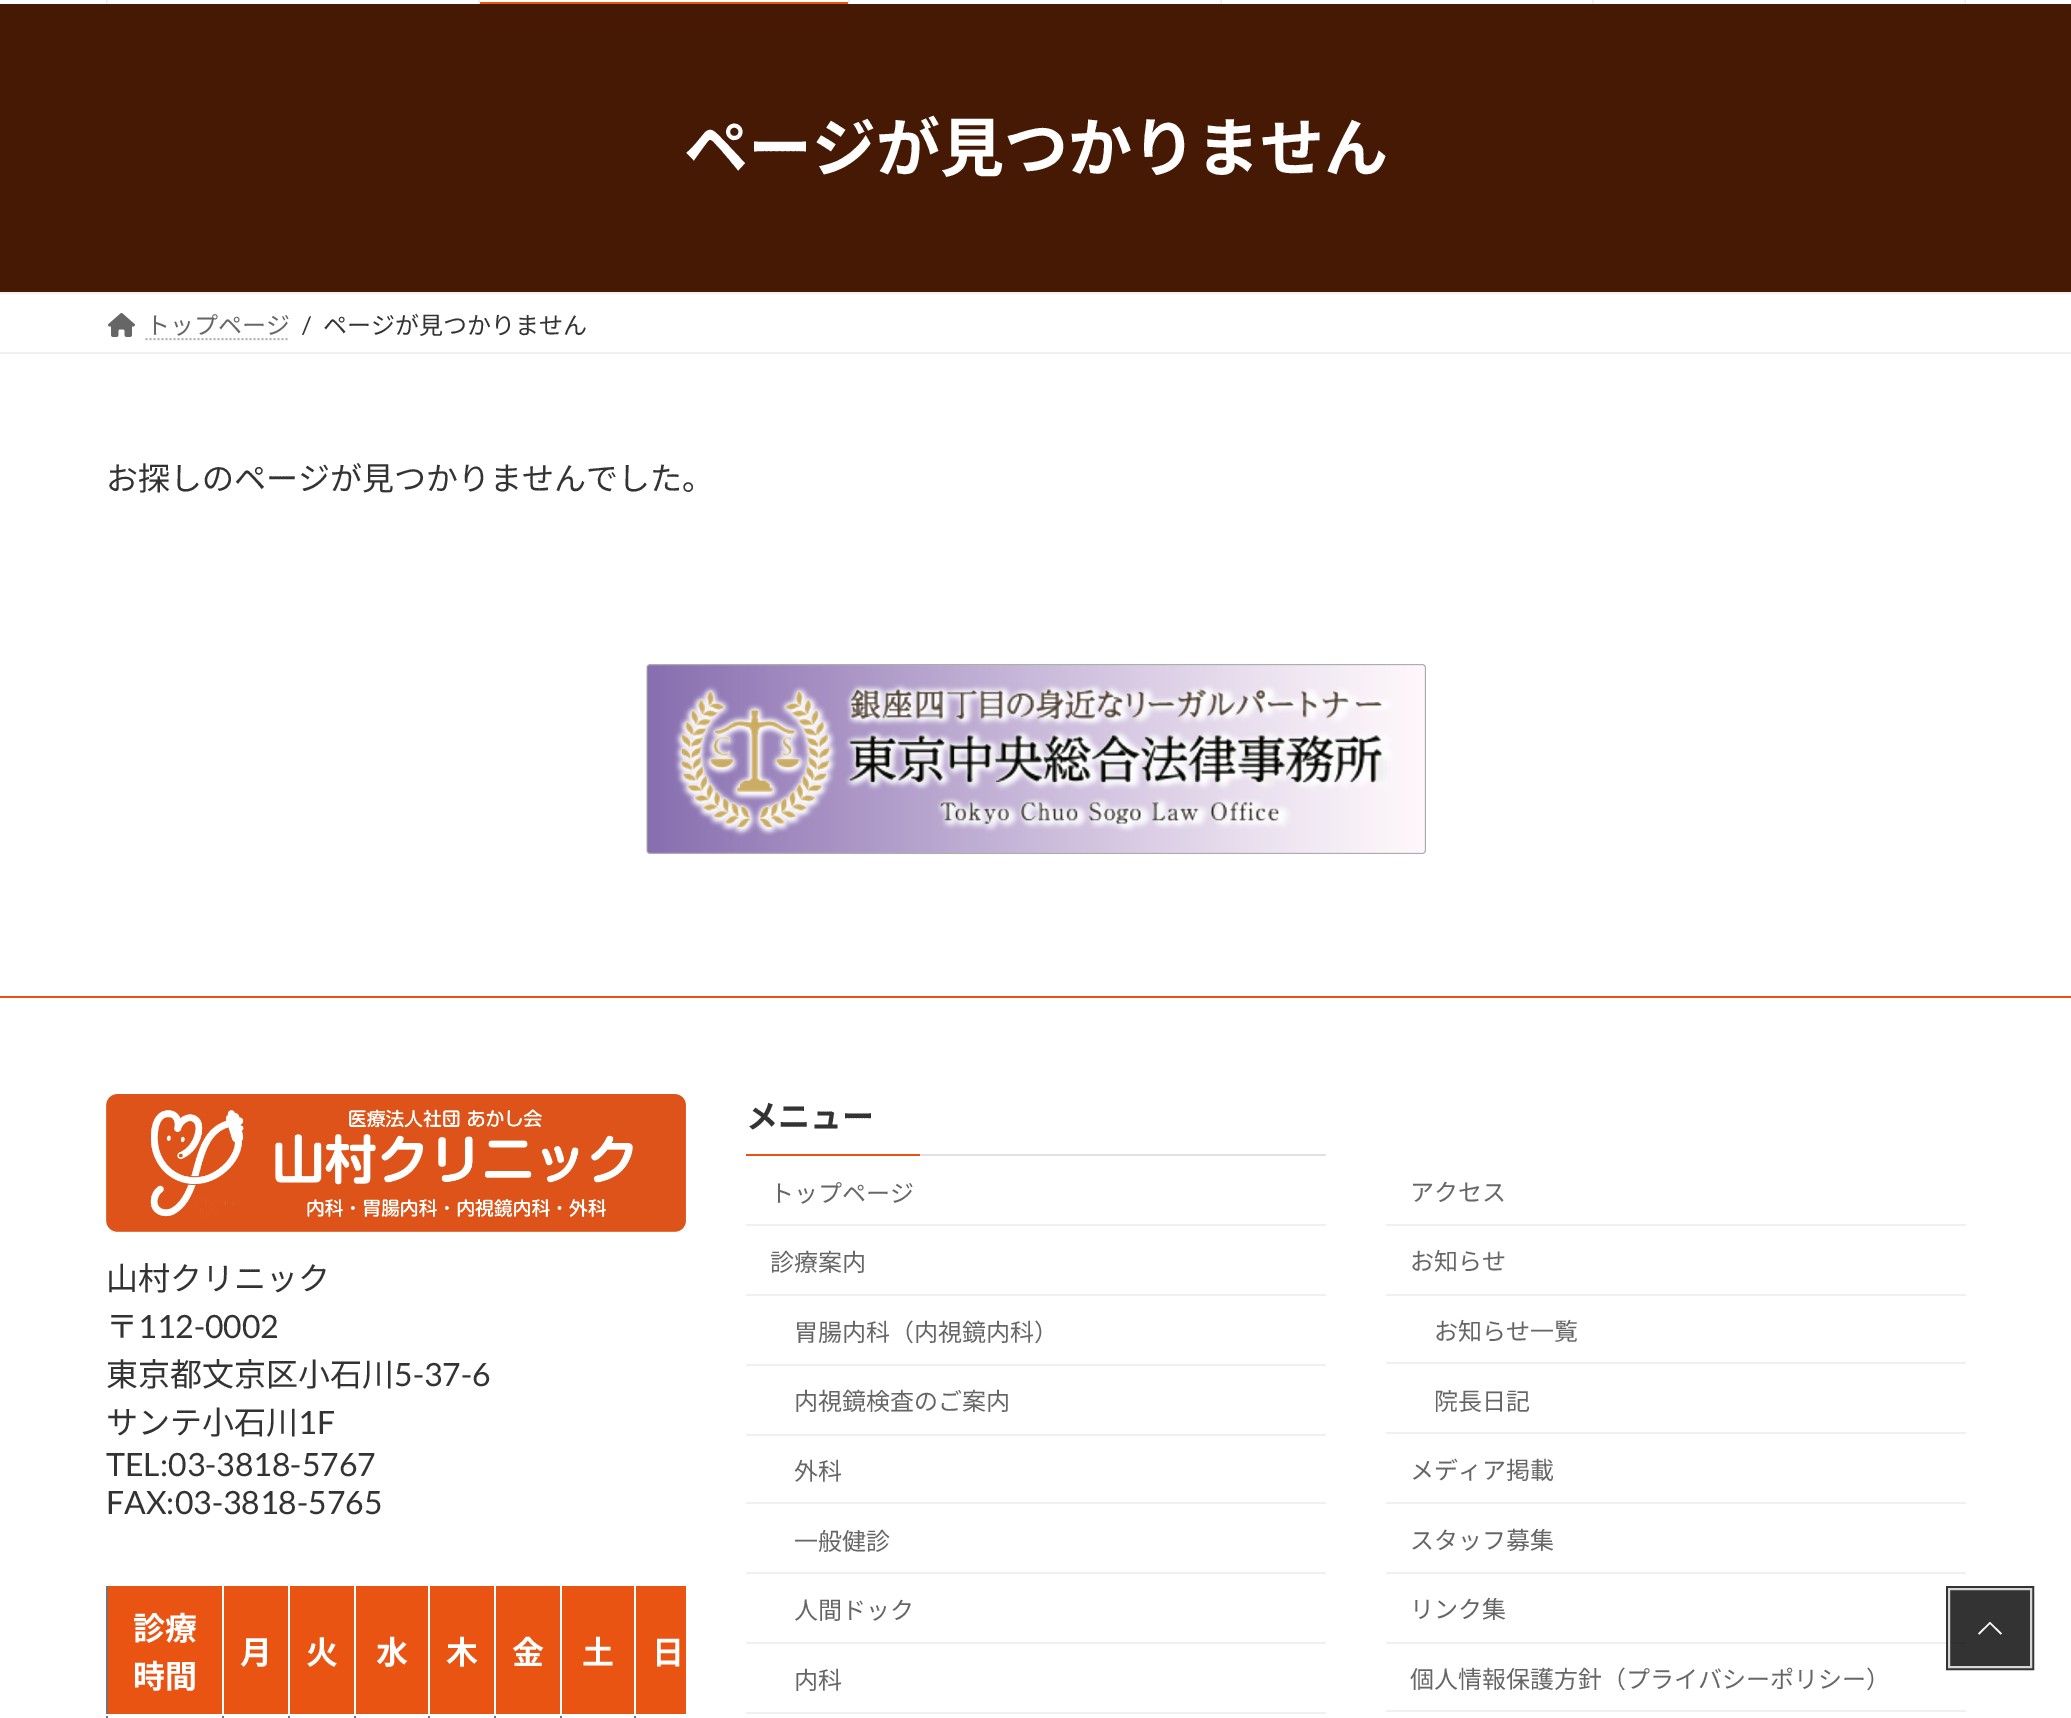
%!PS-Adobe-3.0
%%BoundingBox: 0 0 2071 1718
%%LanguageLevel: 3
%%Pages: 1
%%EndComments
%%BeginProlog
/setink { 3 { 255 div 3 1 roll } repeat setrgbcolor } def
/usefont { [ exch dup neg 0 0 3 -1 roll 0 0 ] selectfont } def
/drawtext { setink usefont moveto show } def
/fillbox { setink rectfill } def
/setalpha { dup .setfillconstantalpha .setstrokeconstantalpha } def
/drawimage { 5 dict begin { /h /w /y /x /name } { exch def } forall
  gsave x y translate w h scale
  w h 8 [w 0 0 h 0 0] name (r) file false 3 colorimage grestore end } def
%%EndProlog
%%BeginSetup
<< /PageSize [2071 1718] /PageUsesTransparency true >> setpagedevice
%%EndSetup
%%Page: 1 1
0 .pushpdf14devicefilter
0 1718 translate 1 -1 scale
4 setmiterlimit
0 0 2071 1718 255 255 255 fillbox
1950 1590 80 76 51 51 51 fillbox
478 0 2 4 240 240 240 fillbox
106 0 2 4 240 240 240 fillbox
848 0 2 4 240 240 240 fillbox
480 2 368 2 234 84 18 fillbox
1220 0 2 4 240 240 240 fillbox
1592 0 2 4 240 240 240 fillbox
1964 0 2 4 240 240 240 fillbox
0 4 2071 288 70 25 5 fillbox
(ページが見つかりません) 684 171 /NotoSansJP-Bold 64 255 255 255 drawtext
0 292 2071 2 240 240 240 fillbox
0 352 2071 2 240 240 240 fillbox
(assets/img1.rgb) 108 313 27 24 drawimage
(トップページ) 146 334 /NotoSansJP-Regular 24 102 102 102 drawtext
179 179 179 setink
2 setlinewidth
[2 2] 0 setdash
145.5 339 moveto 289.5 339 lineto stroke
(/) 302 334 /Lato-Regular 24 51 51 51 drawtext
(ページが見つかりません) 323 334 /NotoSansJP-Regular 24 51 51 51 drawtext
(お探しのページが見つかりませんでした。) 106 490 /NotoSansJP-Regular 32 51 51 51 drawtext
(assets/img2.rgb) 646 664 780 190 drawimage
0 996 2071 2 234 84 18 fillbox
(assets/img3.rgb) 106 1094 580 138 drawimage
(山村クリニック) 106 1290 /NotoSansJP-Regular 32 51 51 51 drawtext
(〒) 106 1338 /NotoSansJP-Regular 32 51 51 51 drawtext
(112-0002) 138 1338 /Lato-Regular 32 51 51 51 drawtext
(東京都文京区小石川) 106 1386 /NotoSansJP-Regular 32 51 51 51 drawtext
(5-37-6) 394 1386 /Lato-Regular 32 51 51 51 drawtext
(サンテ小石川) 106 1434 /NotoSansJP-Regular 32 51 51 51 drawtext
(1F) 298 1434 /Lato-Regular 32 51 51 51 drawtext
(TEL:03-3818-5767) 106 1476 /Lato-Regular 32 51 51 51 drawtext
(FAX:03-3818-5765) 106 1514 /Lato-Regular 32 51 51 51 drawtext
106 1584 2 134 115 115 115 fillbox
108 1586 114 128 234 84 18 fillbox
106 1584 2 2 255 255 255 fillbox
106 1714 2 2 255 255 255 fillbox
(診療) 133 1640 /NotoSansJP-Bold 32 255 255 255 drawtext
(時間) 133 1688 /NotoSansJP-Bold 32 255 255 255 drawtext
224 1586 64 128 234 84 18 fillbox
222 1714 2 4 115 115 115 fillbox
222 1714 2 2 255 255 255 fillbox
(月) 240 1664 /NotoSansJP-Bold 32 255 255 255 drawtext
290 1586 64 128 234 84 18 fillbox
288 1714 2 4 115 115 115 fillbox
288 1714 2 2 255 255 255 fillbox
(火) 306 1664 /NotoSansJP-Bold 32 255 255 255 drawtext
356 1586 72 128 234 84 18 fillbox
354 1714 2 4 115 115 115 fillbox
354 1714 2 2 255 255 255 fillbox
(水) 376 1664 /NotoSansJP-Bold 32 255 255 255 drawtext
430 1586 64 128 234 84 18 fillbox
428 1714 2 4 115 115 115 fillbox
428 1714 2 2 255 255 255 fillbox
(木) 446 1664 /NotoSansJP-Bold 32 255 255 255 drawtext
496 1586 64 128 234 84 18 fillbox
494 1714 2 4 115 115 115 fillbox
494 1714 2 2 255 255 255 fillbox
(金) 512 1664 /NotoSansJP-Bold 32 255 255 255 drawtext
562 1586 72 128 234 84 18 fillbox
560 1714 2 4 115 115 115 fillbox
560 1714 2 2 255 255 255 fillbox
(土) 582 1664 /NotoSansJP-Bold 32 255 255 255 drawtext
636 1586 50 128 234 84 18 fillbox
634 1714 2 4 115 115 115 fillbox
634 1714 2 2 255 255 255 fillbox
(日) 652 1664 /NotoSansJP-Bold 32 255 255 255 drawtext
920 1154 406 2 224 224 224 fillbox
(メニュー) 746 1128 /NotoSansJP-Bold 32 51 51 51 drawtext
746 1154 174 2 234 84 18 fillbox
746 1224 580 2 240 240 240 fillbox
(トップページ) 770 1202 /NotoSansJP-Regular 24 102 102 102 drawtext
746 1294 580 2 240 240 240 fillbox
(診療案内) 770 1271 /NotoSansJP-Regular 24 102 102 102 drawtext
746 1364 580 2 240 240 240 fillbox
(胃腸内科（内視鏡内科）) 794 1341 /NotoSansJP-Regular 24 102 102 102 drawtext
746 1434 580 2 240 240 240 fillbox
(内視鏡検査のご案内) 794 1410 /NotoSansJP-Regular 24 102 102 102 drawtext
746 1502 580 2 240 240 240 fillbox
(外科) 794 1480 /NotoSansJP-Regular 24 102 102 102 drawtext
746 1572 580 2 240 240 240 fillbox
(一般健診) 794 1550 /NotoSansJP-Regular 24 102 102 102 drawtext
746 1642 580 2 240 240 240 fillbox
(人間ドック) 794 1619 /NotoSansJP-Regular 24 102 102 102 drawtext
746 1712 580 2 240 240 240 fillbox
(内科) 794 1689 /NotoSansJP-Regular 24 102 102 102 drawtext
1386 1224 580 2 240 240 240 fillbox
(アクセス) 1410 1201 /NotoSansJP-Regular 24 102 102 102 drawtext
1386 1294 580 2 240 240 240 fillbox
(お知らせ) 1410 1270 /NotoSansJP-Regular 24 102 102 102 drawtext
1386 1362 580 2 240 240 240 fillbox
(お知らせ一覧) 1434 1340 /NotoSansJP-Regular 24 102 102 102 drawtext
1386 1432 580 2 240 240 240 fillbox
(院長日記) 1434 1410 /NotoSansJP-Regular 24 102 102 102 drawtext
1386 1502 580 2 240 240 240 fillbox
(メディア掲載) 1410 1479 /NotoSansJP-Regular 24 102 102 102 drawtext
1386 1572 580 2 240 240 240 fillbox
(スタッフ募集) 1410 1549 /NotoSansJP-Regular 24 102 102 102 drawtext
1386 1642 564 2 240 240 240 fillbox
1950 1642 16 2 48 48 48 fillbox
(リンク集) 1410 1618 /NotoSansJP-Regular 24 102 102 102 drawtext
1386 1710 580 2 240 240 240 fillbox
(個人情報保護方針（プライバシーポリシー）) 1410 1688 /NotoSansJP-Regular 24 102 102 102 drawtext
0.8 setalpha
0 0 0 setink
4 setlinewidth
[] 0 setdash
1948 1588 84 80 rectstroke
255 255 255 setink
2 setlinewidth
1949 1589 82 78 rectstroke
1 setalpha
2002 1633.5 moveto 2000.5 1634.5 lineto 1990 1624 lineto 1979.5 1634.5 lineto 1978 1633.5 lineto 1990 1622 lineto closepath fill
.poppdf14devicefilter showpage
%%EOF
